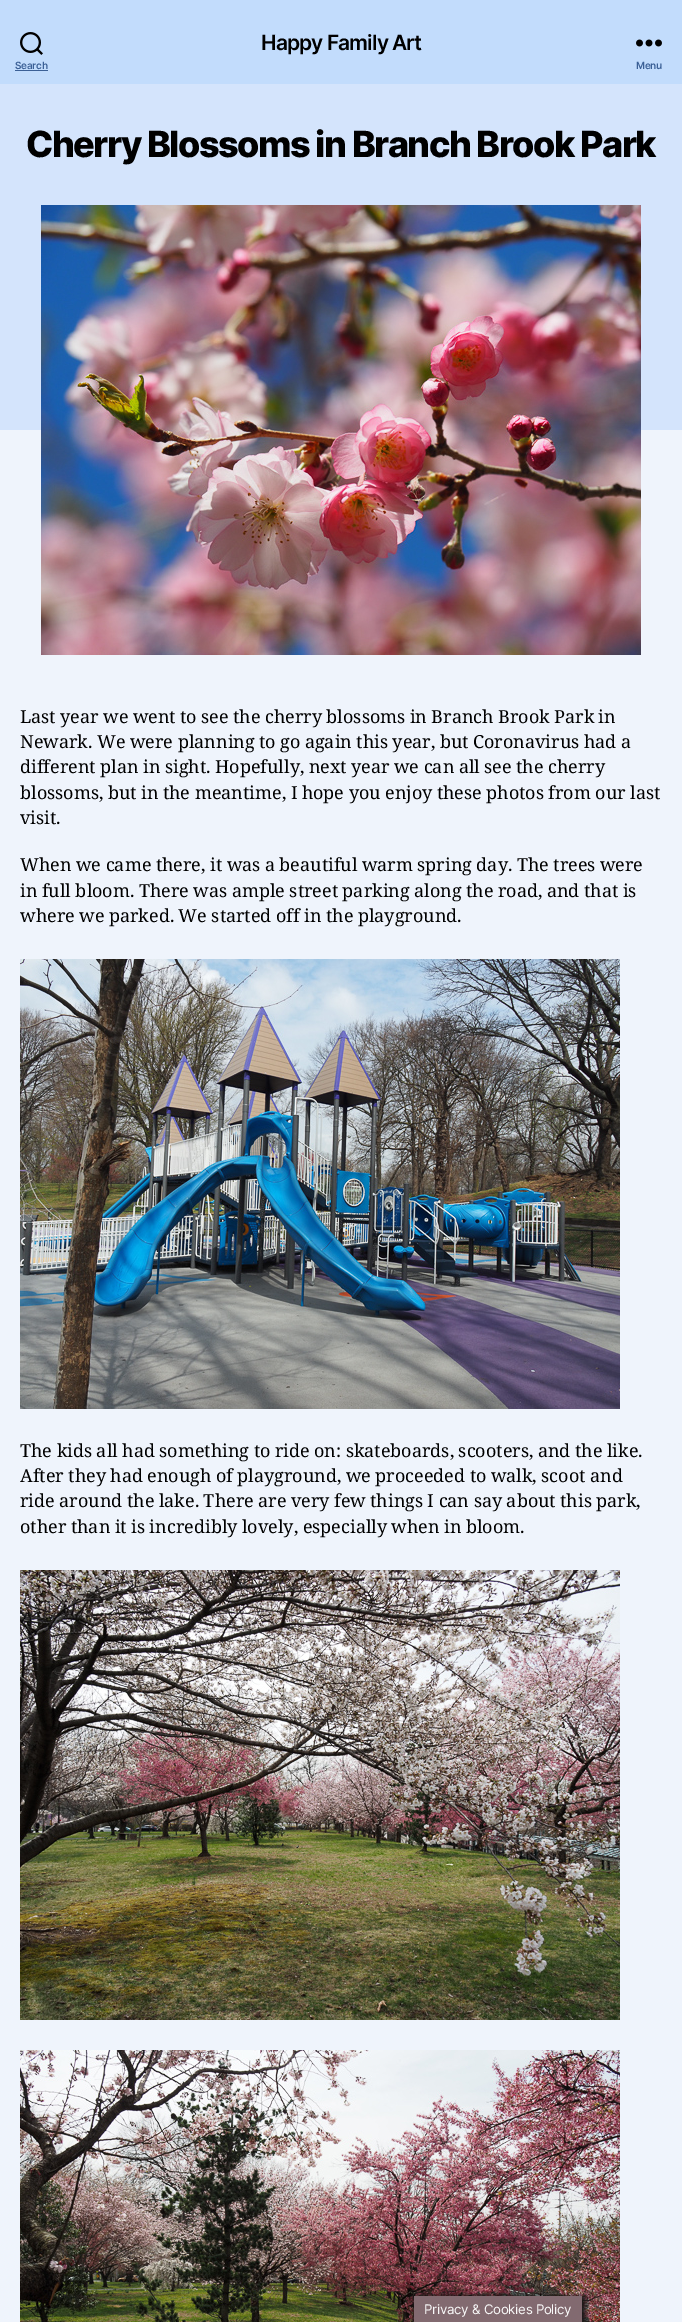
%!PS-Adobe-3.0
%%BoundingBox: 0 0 682 2322
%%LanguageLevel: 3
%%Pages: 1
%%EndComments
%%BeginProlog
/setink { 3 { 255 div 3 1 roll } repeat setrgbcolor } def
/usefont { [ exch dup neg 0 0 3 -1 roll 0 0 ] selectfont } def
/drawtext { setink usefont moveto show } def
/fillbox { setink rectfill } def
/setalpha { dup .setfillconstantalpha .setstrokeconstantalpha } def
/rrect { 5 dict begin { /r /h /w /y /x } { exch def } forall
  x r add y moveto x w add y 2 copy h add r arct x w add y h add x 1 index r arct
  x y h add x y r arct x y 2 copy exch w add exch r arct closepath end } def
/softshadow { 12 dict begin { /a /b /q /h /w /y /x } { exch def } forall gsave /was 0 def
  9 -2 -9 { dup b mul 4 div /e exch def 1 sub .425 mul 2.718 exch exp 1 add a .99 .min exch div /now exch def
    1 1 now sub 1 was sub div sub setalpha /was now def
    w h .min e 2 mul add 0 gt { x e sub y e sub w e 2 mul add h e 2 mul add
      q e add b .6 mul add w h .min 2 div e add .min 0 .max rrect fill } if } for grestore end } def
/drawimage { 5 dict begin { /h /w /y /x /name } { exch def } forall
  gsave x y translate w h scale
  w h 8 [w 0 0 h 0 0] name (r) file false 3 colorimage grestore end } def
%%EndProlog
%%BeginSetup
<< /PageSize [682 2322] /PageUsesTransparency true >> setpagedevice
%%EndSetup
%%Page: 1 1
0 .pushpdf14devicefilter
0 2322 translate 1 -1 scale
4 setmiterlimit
0 0 682 2322 239 244 252 fillbox
0 0 682 84 194 220 252 fillbox
/Inter-SemiBold 21 usefont
0 0 0 setink
261 50 moveto -0.9 0 (Happy Family Art) ashow
(assets/img1.rgb) 20 32 23 23 drawimage
/Inter-SemiBold 10 usefont
59 96 150 setink
15 69 moveto -0.25 0 (Search) ashow
15 70 33 1 59 96 150 fillbox
(assets/img2.rgb) 636 39 26 8 drawimage
636 69 moveto -0.25 0 (Menu) ashow
0 84 682 346 212 228 252 fillbox
/Inter-ExtraBold 36 usefont
0 0 0 setink
26 157 moveto -1.5 0 (Cherry Blossoms in Branch Brook Park) ashow
(assets/img3.rgb) 41 205 600 450 drawimage
/NotoSerif-Regular 18 usefont
20 723 moveto -0.25 0 32 (Last year we went to see the cherry blossoms in Branch Brook Park in) widthshow
20 748 moveto -0.25 0 32 (Newark. We were planning to go again this year, but Coronavirus had a) widthshow
20 773 moveto -0.25 0 32 (different plan in sight. Hopefully, next year we can all see the cherry) widthshow
20 799 moveto -0.25 0 32 (blossoms, but in the meantime, I hope you enjoy these photos from our last) widthshow
(visit.) 20 824 /NotoSerif-Regular 18 0 0 0 drawtext
20 871 moveto -0.25 0 32 (When we came there, it was a beautiful warm spring day. The trees were) widthshow
20 897 moveto -0.25 0 32 (in full bloom. There was ample street parking along the road, and that is) widthshow
20 922 moveto -0.25 0 32 (where we parked. We started off in the playground.) widthshow
(assets/img4.rgb) 20 959 600 450 drawimage
20 1457 moveto -0.25 0 32 (The kids all had something to ride on: skateboards, scooters, and the like.) widthshow
20 1482 moveto -0.25 0 32 (After they had enough of playground, we proceeded to walk, scoot and) widthshow
20 1507 moveto -0.25 0 32 (ride around the lake. There are very few things I can say about this park,) widthshow
20 1533 moveto -0.25 0 32 (other than it is incredibly lovely, especially when in bloom.) widthshow
(assets/img5.rgb) 20 1570 600 450 drawimage
(assets/img6.rgb) 20 2050 600 272 drawimage
22 22 22 setink
414 2296 172 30 0 2.5 1 softshadow
414 2296 168 26 130 106 112 fillbox
/Inter-Regular 13.25 usefont
249 249 249 setink
424 2314 moveto -0.25 0 (Privacy & Cookies Policy) ashow
.poppdf14devicefilter showpage
%%EOF
